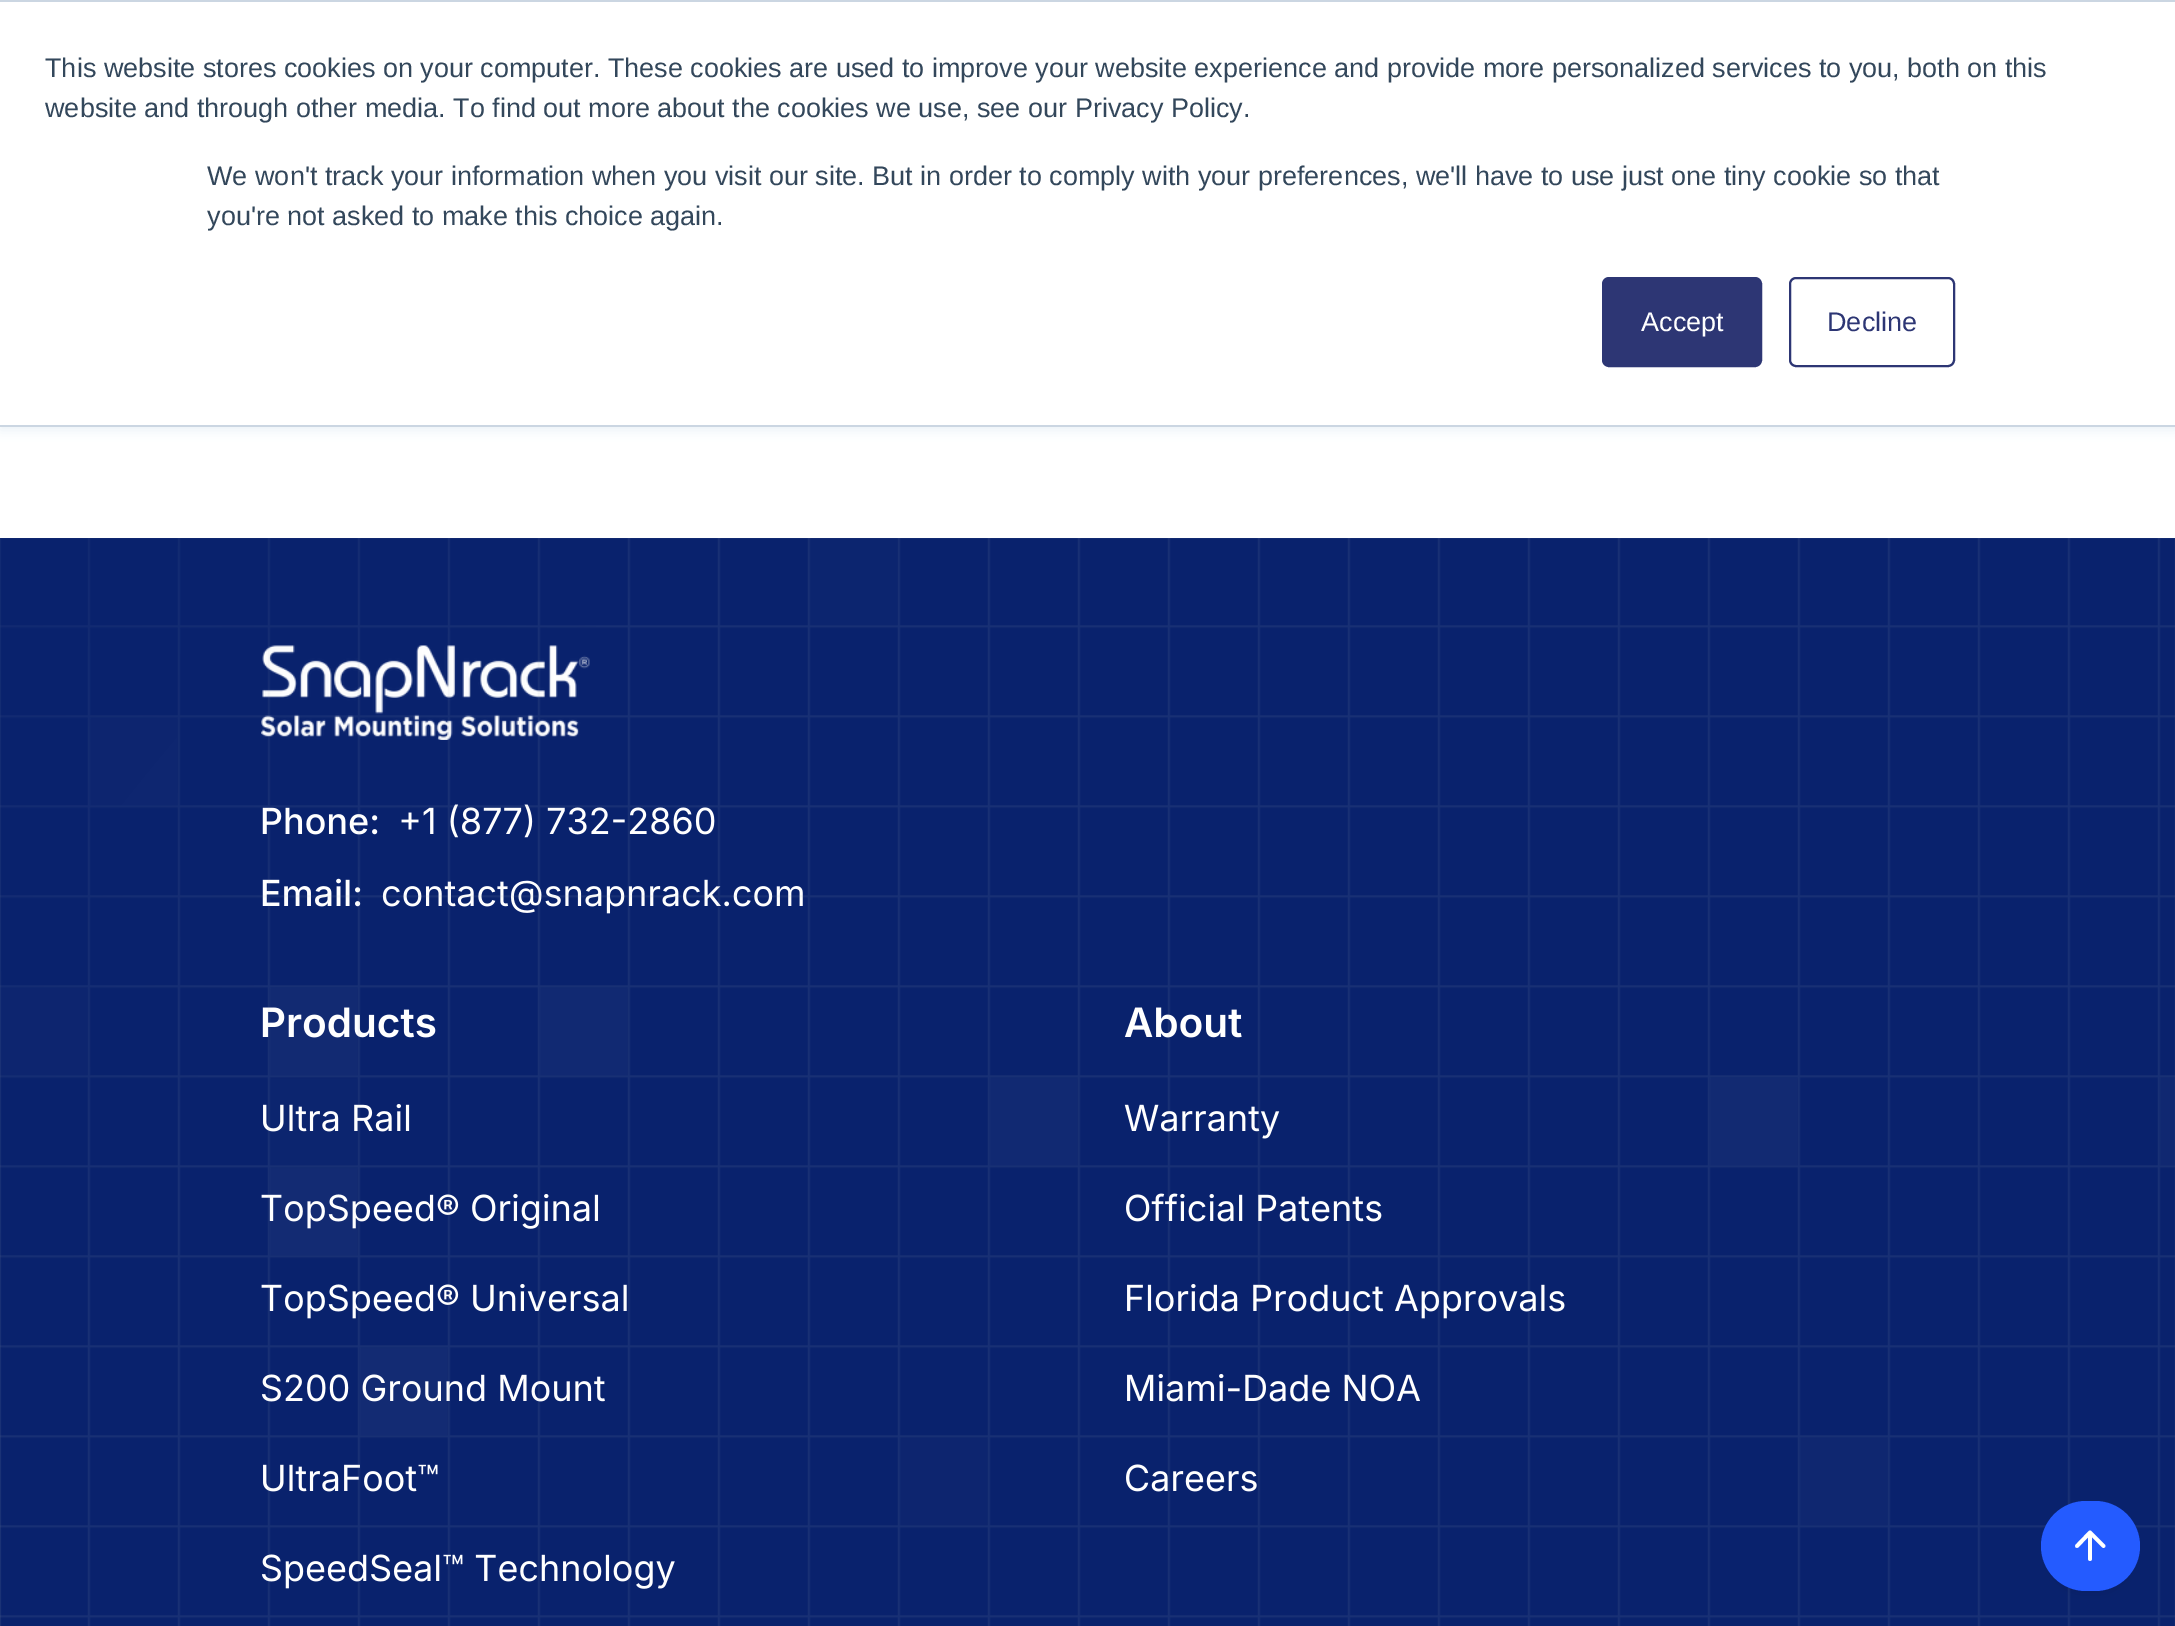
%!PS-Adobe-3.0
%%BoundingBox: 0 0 2175 1626
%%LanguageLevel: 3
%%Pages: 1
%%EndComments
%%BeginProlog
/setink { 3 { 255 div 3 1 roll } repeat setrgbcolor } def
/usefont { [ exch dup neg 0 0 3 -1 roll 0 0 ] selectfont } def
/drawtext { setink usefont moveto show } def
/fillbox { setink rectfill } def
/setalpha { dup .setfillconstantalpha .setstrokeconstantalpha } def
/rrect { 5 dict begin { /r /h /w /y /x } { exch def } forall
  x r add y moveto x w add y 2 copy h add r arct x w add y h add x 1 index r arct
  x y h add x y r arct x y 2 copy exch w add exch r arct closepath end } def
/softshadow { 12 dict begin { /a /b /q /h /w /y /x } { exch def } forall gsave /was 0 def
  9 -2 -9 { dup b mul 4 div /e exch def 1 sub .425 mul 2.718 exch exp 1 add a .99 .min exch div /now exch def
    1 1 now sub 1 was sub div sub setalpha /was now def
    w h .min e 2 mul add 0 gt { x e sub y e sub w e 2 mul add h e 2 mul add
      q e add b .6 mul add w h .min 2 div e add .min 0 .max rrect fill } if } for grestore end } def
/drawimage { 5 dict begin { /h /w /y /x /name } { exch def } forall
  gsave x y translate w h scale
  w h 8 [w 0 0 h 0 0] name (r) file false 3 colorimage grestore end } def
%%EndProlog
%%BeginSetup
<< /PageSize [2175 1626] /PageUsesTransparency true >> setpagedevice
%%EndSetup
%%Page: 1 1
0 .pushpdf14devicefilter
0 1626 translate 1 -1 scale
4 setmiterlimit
0 0 2175 1626 255 255 255 fillbox
234 240 246 setink
0 2 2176 428 0 5.5 1 softshadow
0 2 2175 423 255 255 255 fillbox
0 0 2175 2 203 214 226 fillbox
0 425 2175 2 203 214 226 fillbox
(This website stores cookies on your computer. These cookies are used to improve your website experience and provide more personalized services to you, both on this) 45 77 /LiberationSans-Regular 27 51 71 91 drawtext
(website and through other media. To find out more about the cookies we use, see our Privacy Policy.) 45 117 /LiberationSans-Regular 27 51 71 91 drawtext
(We won't track your information when you visit our site. But in order to comply with your preferences, we'll have to use just one tiny cookie so that) 207 185 /LiberationSans-Regular 27 51 71 91 drawtext
(you're not asked to make this choice again.) 207 225 /LiberationSans-Regular 27 51 71 91 drawtext
45 54 116 setink
1603 278 158 88 6 rrect gsave fill grestore
2 setlinewidth
stroke
(Accept) 1641 331 /LiberationSans-Regular 27 255 255 255 drawtext
45 54 116 setink
1790 278 164 88 6 rrect stroke
(Decline) 1827 331 /LiberationSans-Regular 27 45 54 116 drawtext
0 538 2175 1088 9 34 109 fillbox
(assets/img2.rgb) 261 645 329 95 drawimage
(Phone:) 260 834 /Inter-Medium 36 255 255 255 drawtext
(+1 \(877\) 732-2860) 398 834 /Inter-Regular 36 255 255 255 drawtext
(Email:) 260 906 /Inter-Medium 36 255 255 255 drawtext
(contact@snapnrack.com) 381 906 /Inter-Regular 36 255 255 255 drawtext
(Products) 260 1037 /Inter-SemiBold 40.5 255 255 255 drawtext
(Ultra Rail) 260 1131 /Inter-Regular 36 255 255 255 drawtext
(TopSpeed® Original) 260 1221 /Inter-Regular 36 255 255 255 drawtext
(TopSpeed® Universal) 260 1311 /Inter-Regular 36 255 255 255 drawtext
(S200 Ground Mount) 260 1401 /Inter-Regular 36 255 255 255 drawtext
(UltraFoot™) 260 1491 /Inter-Regular 36 255 255 255 drawtext
(SpeedSeal™ Technology) 260 1581 /Inter-Regular 36 255 255 255 drawtext
(About) 1124 1037 /Inter-SemiBold 40.5 255 255 255 drawtext
(Warranty) 1124 1131 /Inter-Regular 36 255 255 255 drawtext
(Official Patents) 1124 1221 /Inter-Regular 36 255 255 255 drawtext
(Florida Product Approvals) 1124 1311 /Inter-Regular 36 255 255 255 drawtext
(Miami-Dade NOA) 1124 1401 /Inter-Regular 36 255 255 255 drawtext
(Careers) 1124 1491 /Inter-Regular 36 255 255 255 drawtext
(assets/img1.rgb) 0 538 2175 1088 drawimage
0 0 0 setink
2050 1519 81 72 36 7 0.1 softshadow
36 91 255 setink
2041 1501 99 90 45 rrect fill
255 255 255 setink
3.8 setlinewidth
1 setlinecap
1 setlinejoin
2077 1546 moveto 2090 1532.5 lineto 2103.5 1546 lineto 2090 1559 moveto 2090 1532.5 lineto stroke
.poppdf14devicefilter showpage
%%EOF
